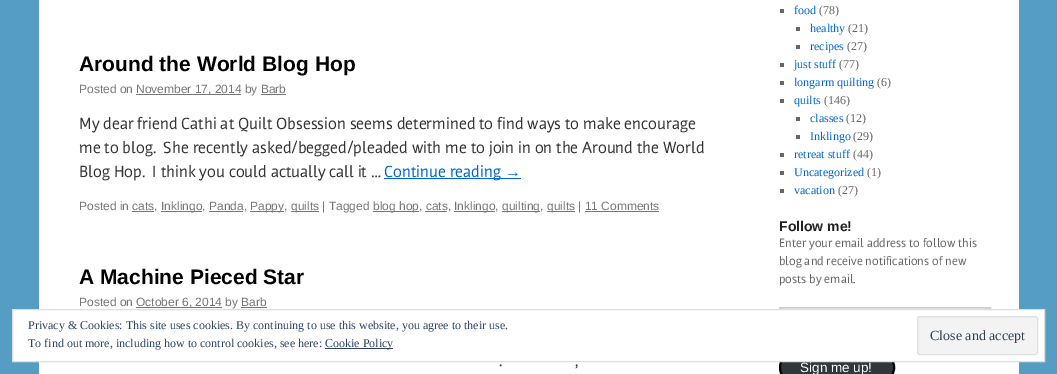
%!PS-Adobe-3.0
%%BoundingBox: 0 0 1057 374
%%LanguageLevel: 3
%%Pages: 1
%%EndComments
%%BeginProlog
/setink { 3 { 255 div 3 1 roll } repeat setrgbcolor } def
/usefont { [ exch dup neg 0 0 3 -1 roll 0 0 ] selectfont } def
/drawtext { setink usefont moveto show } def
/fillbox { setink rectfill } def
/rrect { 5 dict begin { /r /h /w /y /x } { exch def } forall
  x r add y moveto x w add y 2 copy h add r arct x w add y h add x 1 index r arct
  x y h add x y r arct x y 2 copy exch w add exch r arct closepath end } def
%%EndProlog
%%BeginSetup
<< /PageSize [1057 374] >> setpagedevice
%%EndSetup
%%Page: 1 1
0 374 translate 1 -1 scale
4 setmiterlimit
0 0 1057 374 86 157 196 fillbox
39 0 980 374 255 255 255 fillbox
(Around the World Blog Hop) 79 71 /LiberationSans-Bold 21 0 0 0 drawtext
(Posted on) 79 93 /LiberationSans-Regular 12 119 119 119 drawtext
136 94 105 1 119 119 119 fillbox
(November 17, 2014 by Barb) 136 93 /LiberationSans-Regular 12 119 119 119 drawtext
261 94 25 1 119 119 119 fillbox
(My dear friend Cathi at Quilt Obsession seems determined to find ways to make encourage) 79 129 /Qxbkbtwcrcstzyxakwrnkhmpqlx-Regular 16 51 51 51 drawtext
(me to blog.  She recently asked/begged/pleaded with me to join in on the Around the World) 79 153 /Qxbkbtwcrcstzyxakwrnkhmpqlx-Regular 16 51 51 51 drawtext
(Blog Hop.  I think you could actually call it …) 79 177 /Qxbkbtwcrcstzyxakwrnkhmpqlx-Regular 16 51 51 51 drawtext
384 178 137 1 0 102 204 fillbox
(Continue reading) 384 177 /Qxbkbtwcrcstzyxakwrnkhmpqlx-Regular 16 0 102 204 drawtext
(→) 505 177 /LiberationSans-Regular 16 0 102 204 drawtext
(Posted in cats,) 79 210 /LiberationSans-Regular 12 119 119 119 drawtext
132 211 22 1 119 119 119 fillbox
161 211 41 1 119 119 119 fillbox
(Inklingo, Panda,) 161 210 /LiberationSans-Regular 12 119 119 119 drawtext
209 211 34 1 119 119 119 fillbox
250 211 34 1 119 119 119 fillbox
(Pappy,) 250 210 /LiberationSans-Regular 12 119 119 119 drawtext
291 211 28 1 119 119 119 fillbox
(quilts | Tagged) 291 210 /LiberationSans-Regular 12 119 119 119 drawtext
373 211 46 1 119 119 119 fillbox
(blog hop, cats,) 373 210 /LiberationSans-Regular 12 119 119 119 drawtext
425 211 22 1 119 119 119 fillbox
454 211 41 1 119 119 119 fillbox
(Inklingo,) 454 210 /LiberationSans-Regular 12 119 119 119 drawtext
502 211 38 1 119 119 119 fillbox
(quilting,) 502 210 /LiberationSans-Regular 12 119 119 119 drawtext
547 211 28 1 119 119 119 fillbox
(quilts | 11 Comments) 547 210 /LiberationSans-Regular 12 119 119 119 drawtext
585 211 74 1 119 119 119 fillbox
(A Machine Pieced Star) 79 284 /LiberationSans-Bold 21 0 0 0 drawtext
(Posted on) 79 306 /LiberationSans-Regular 12 119 119 119 drawtext
136 307 86 1 119 119 119 fillbox
(October 6, 2014 by Barb) 136 306 /LiberationSans-Regular 12 119 119 119 drawtext
241 307 26 1 119 119 119 fillbox
(.) 499 366 /Qxbkbtwcrcstzyxakwrnkhmpqlx-Regular 16 51 51 51 drawtext
(,) 575 366 /Qxbkbtwcrcstzyxakwrnkhmpqlx-Regular 16 51 51 51 drawtext
780 9 4 4 102 102 102 fillbox
(food) 794 14 /LiberationSerif-Regular 12 0 102 204 drawtext
(\(78\)) 819 14 /LiberationSerif-Regular 12 102 102 102 drawtext
796 27 4 4 102 102 102 fillbox
(healthy) 810 32 /LiberationSerif-Regular 12 0 102 204 drawtext
(\(21\)) 848 32 /LiberationSerif-Regular 12 102 102 102 drawtext
796 45 4 4 102 102 102 fillbox
(recipes) 810 50 /LiberationSerif-Regular 12 0 102 204 drawtext
(\(27\)) 847 50 /LiberationSerif-Regular 12 102 102 102 drawtext
780 63 4 4 102 102 102 fillbox
(just stuff) 794 68 /LiberationSerif-Regular 12 0 102 204 drawtext
(\(77\)) 839 68 /LiberationSerif-Regular 12 102 102 102 drawtext
780 81 4 4 102 102 102 fillbox
(longarm quilting) 794 86 /LiberationSerif-Regular 12 0 102 204 drawtext
(\(6\)) 877 86 /LiberationSerif-Regular 12 102 102 102 drawtext
780 99 4 4 102 102 102 fillbox
(quilts) 794 104 /LiberationSerif-Regular 12 0 102 204 drawtext
(\(146\)) 824 104 /LiberationSerif-Regular 12 102 102 102 drawtext
796 117 4 4 102 102 102 fillbox
(classes) 810 122 /LiberationSerif-Regular 12 0 102 204 drawtext
(\(12\)) 846 122 /LiberationSerif-Regular 12 102 102 102 drawtext
796 135 4 4 102 102 102 fillbox
(Inklingo) 810 140 /LiberationSerif-Regular 12 0 102 204 drawtext
(\(29\)) 853 140 /LiberationSerif-Regular 12 102 102 102 drawtext
780 153 4 4 102 102 102 fillbox
(retreat stuff) 794 158 /LiberationSerif-Regular 12 0 102 204 drawtext
(\(44\)) 853 158 /LiberationSerif-Regular 12 102 102 102 drawtext
780 171 4 4 102 102 102 fillbox
(Uncategorized) 794 176 /LiberationSerif-Regular 12 0 102 204 drawtext
(\(1\)) 867 176 /LiberationSerif-Regular 12 102 102 102 drawtext
780 189 4 4 102 102 102 fillbox
(vacation) 794 194 /LiberationSerif-Regular 12 0 102 204 drawtext
(\(27\)) 838 194 /LiberationSerif-Regular 12 102 102 102 drawtext
(Follow me!) 779 231 /LiberationSans-Bold 14 34 34 34 drawtext
(Enter your email address to follow this) 779 247 /Qxbkbtwcrcstzyxakwrnkhmpqlx-Regular 12 102 102 102 drawtext
(blog and receive notifications of new) 779 265 /Qxbkbtwcrcstzyxakwrnkhmpqlx-Regular 12 102 102 102 drawtext
(posts by email.) 779 283 /Qxbkbtwcrcstzyxakwrnkhmpqlx-Regular 12 102 102 102 drawtext
gsave
780 308 210 20 rectclip
224 224 224 setink
681 209 moveto 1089 209 lineto 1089 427 lineto 681 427 lineto closepath 781 309 moveto 991 309 lineto 991 329 lineto 781 329 lineto closepath eofill
grestore
204 204 204 setink
779.5 307.5 211 21 rectstroke
50 55 60 setink
780 348 114 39 19.5 rrect gsave fill grestore
0 0 0 setink
2 setlinewidth
stroke
(Sign me up!) 800 372 /LiberationSans-Regular 13.5 255 255 255 drawtext
12.5 309.5 moveto 1044.5 309.5 lineto 1044.5 361.5 lineto 12.5 361.5 lineto closepath gsave fill grestore
222 222 222 setink
1 setlinewidth
stroke
(Privacy & Cookies: This site uses cookies. By continuing to use this website, you agree to their use.) 28 329 /LiberationSerif-Regular 12 46 68 103 drawtext
(To find out more, including how to control cookies, see here:) 28 347 /LiberationSerif-Regular 12 46 68 103 drawtext
325 348 68 1 46 68 103 fillbox
(Cookie Policy) 325 347 /LiberationSerif-Regular 12 46 68 103 drawtext
243 243 243 setink
917.5 316.5 120 38 2.5 rrect gsave fill grestore
222 222 222 setink
stroke
(Close and accept) 930 340 /LiberationSerif-Regular 14 46 68 83 drawtext
showpage
%%EOF
